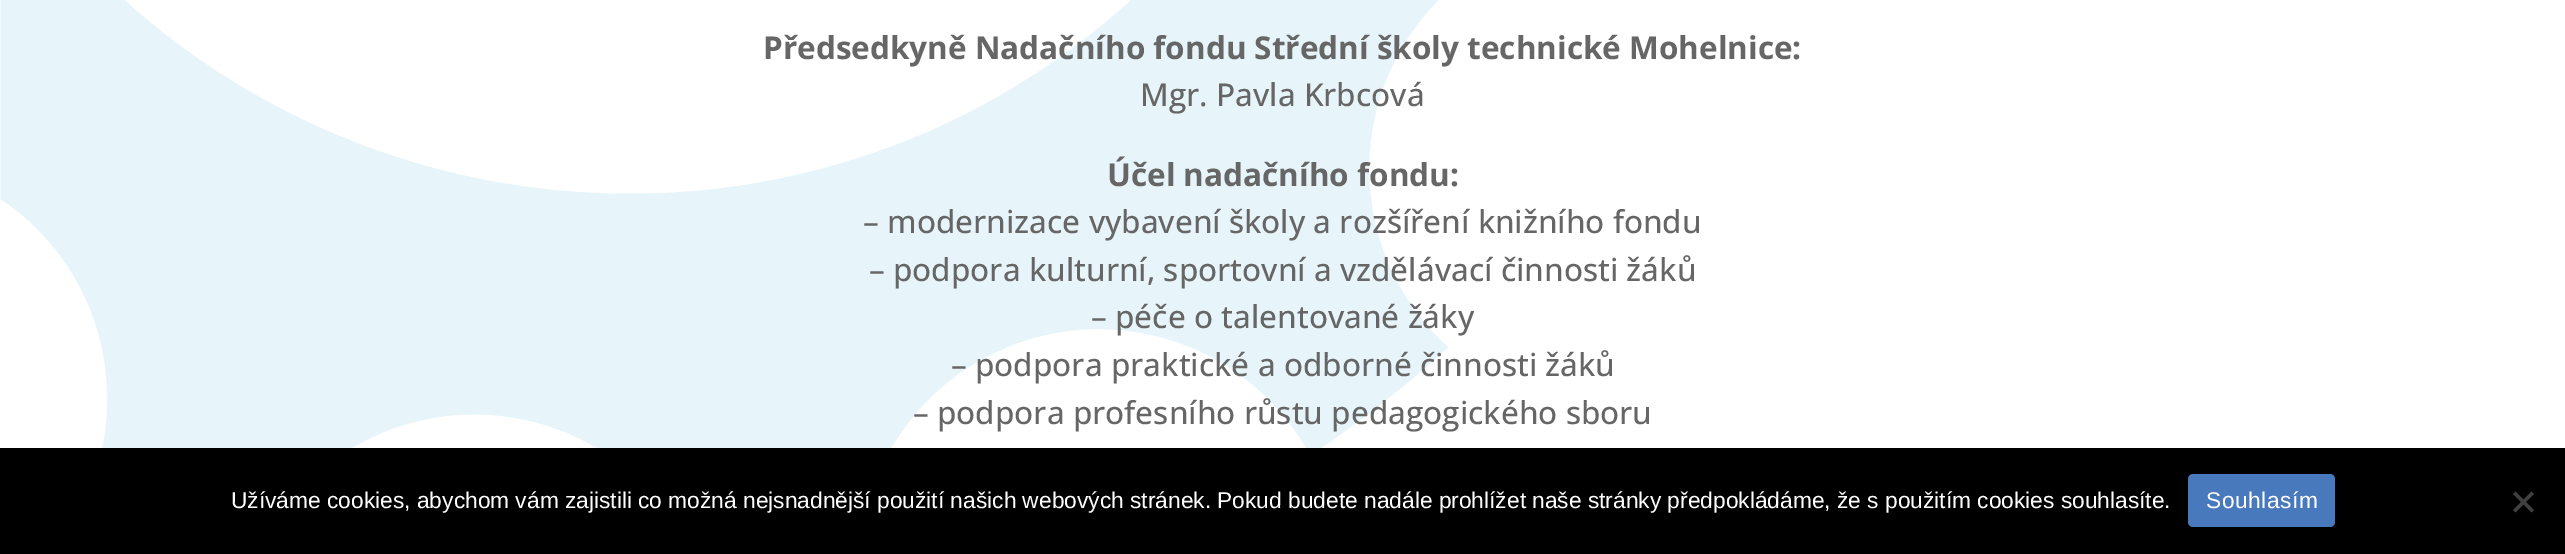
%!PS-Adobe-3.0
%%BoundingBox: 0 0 2565 554
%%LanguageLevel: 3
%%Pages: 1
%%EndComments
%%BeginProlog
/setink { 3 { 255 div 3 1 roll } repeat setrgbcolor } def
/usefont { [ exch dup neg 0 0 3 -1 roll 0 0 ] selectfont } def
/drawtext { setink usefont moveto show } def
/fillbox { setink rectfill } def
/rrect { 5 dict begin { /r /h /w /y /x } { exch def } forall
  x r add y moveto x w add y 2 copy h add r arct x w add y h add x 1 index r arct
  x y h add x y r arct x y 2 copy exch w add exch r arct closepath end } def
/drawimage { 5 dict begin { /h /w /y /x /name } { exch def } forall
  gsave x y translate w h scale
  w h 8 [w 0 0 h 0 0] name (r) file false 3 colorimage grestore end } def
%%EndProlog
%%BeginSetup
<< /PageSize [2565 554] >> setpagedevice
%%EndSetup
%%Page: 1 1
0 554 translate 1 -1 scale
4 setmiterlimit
0 0 2565 554 255 255 255 fillbox
(assets/img1.rgb) 0 0 1449 448 drawimage
(Předsedkyně Nadačního fondu Střední školy technické Mohelnice:) 763 59 /OpenSans-Bold 31.5 102 102 102 drawtext
(Mgr. Pavla Krbcová) 1140 106 /OpenSans-Medium 31.5 102 102 102 drawtext
(Účel nadačního fondu:) 1107 186 /OpenSans-Bold 31.5 102 102 102 drawtext
(– modernizace vybavení školy a rozšíření knižního fondu) 863 233 /OpenSans-Medium 31.5 102 102 102 drawtext
(– podpora kulturní, sportovní a vzdělávací činnosti žáků) 869 281 /OpenSans-Medium 31.5 102 102 102 drawtext
(– péče o talentované žáky) 1091 328 /OpenSans-Medium 31.5 102 102 102 drawtext
(– podpora praktické a odborné činnosti žáků) 951 376 /OpenSans-Medium 31.5 102 102 102 drawtext
(– podpora profesního růstu pedagogického sboru) 913 424 /OpenSans-Medium 31.5 102 102 102 drawtext
0 448 2565 106 0 0 0 fillbox
(Užíváme cookies, abychom vám zajistili co možná nejsnadnější použití našich webových stránek. Pokud budete nadále prohlížet naše stránky předpokládáme, že s použitím cookies souhlasíte.) 231 508 /LiberationSans-Regular 22.75 255 255 255 drawtext
72 121 189 setink
2188 474 147 53 5 rrect fill
255 255 255 setink
2206 508 moveto 0.5 0 (Souhlasím) ashow
64 64 64 setink
2531.5 491.5 moveto 2534 494 lineto 2515.5 512.5 lineto 2513 510 lineto closepath fill
2513 494 moveto 2515.5 491.5 lineto 2534 510 lineto 2531.5 512.5 lineto closepath fill
showpage
%%EOF
